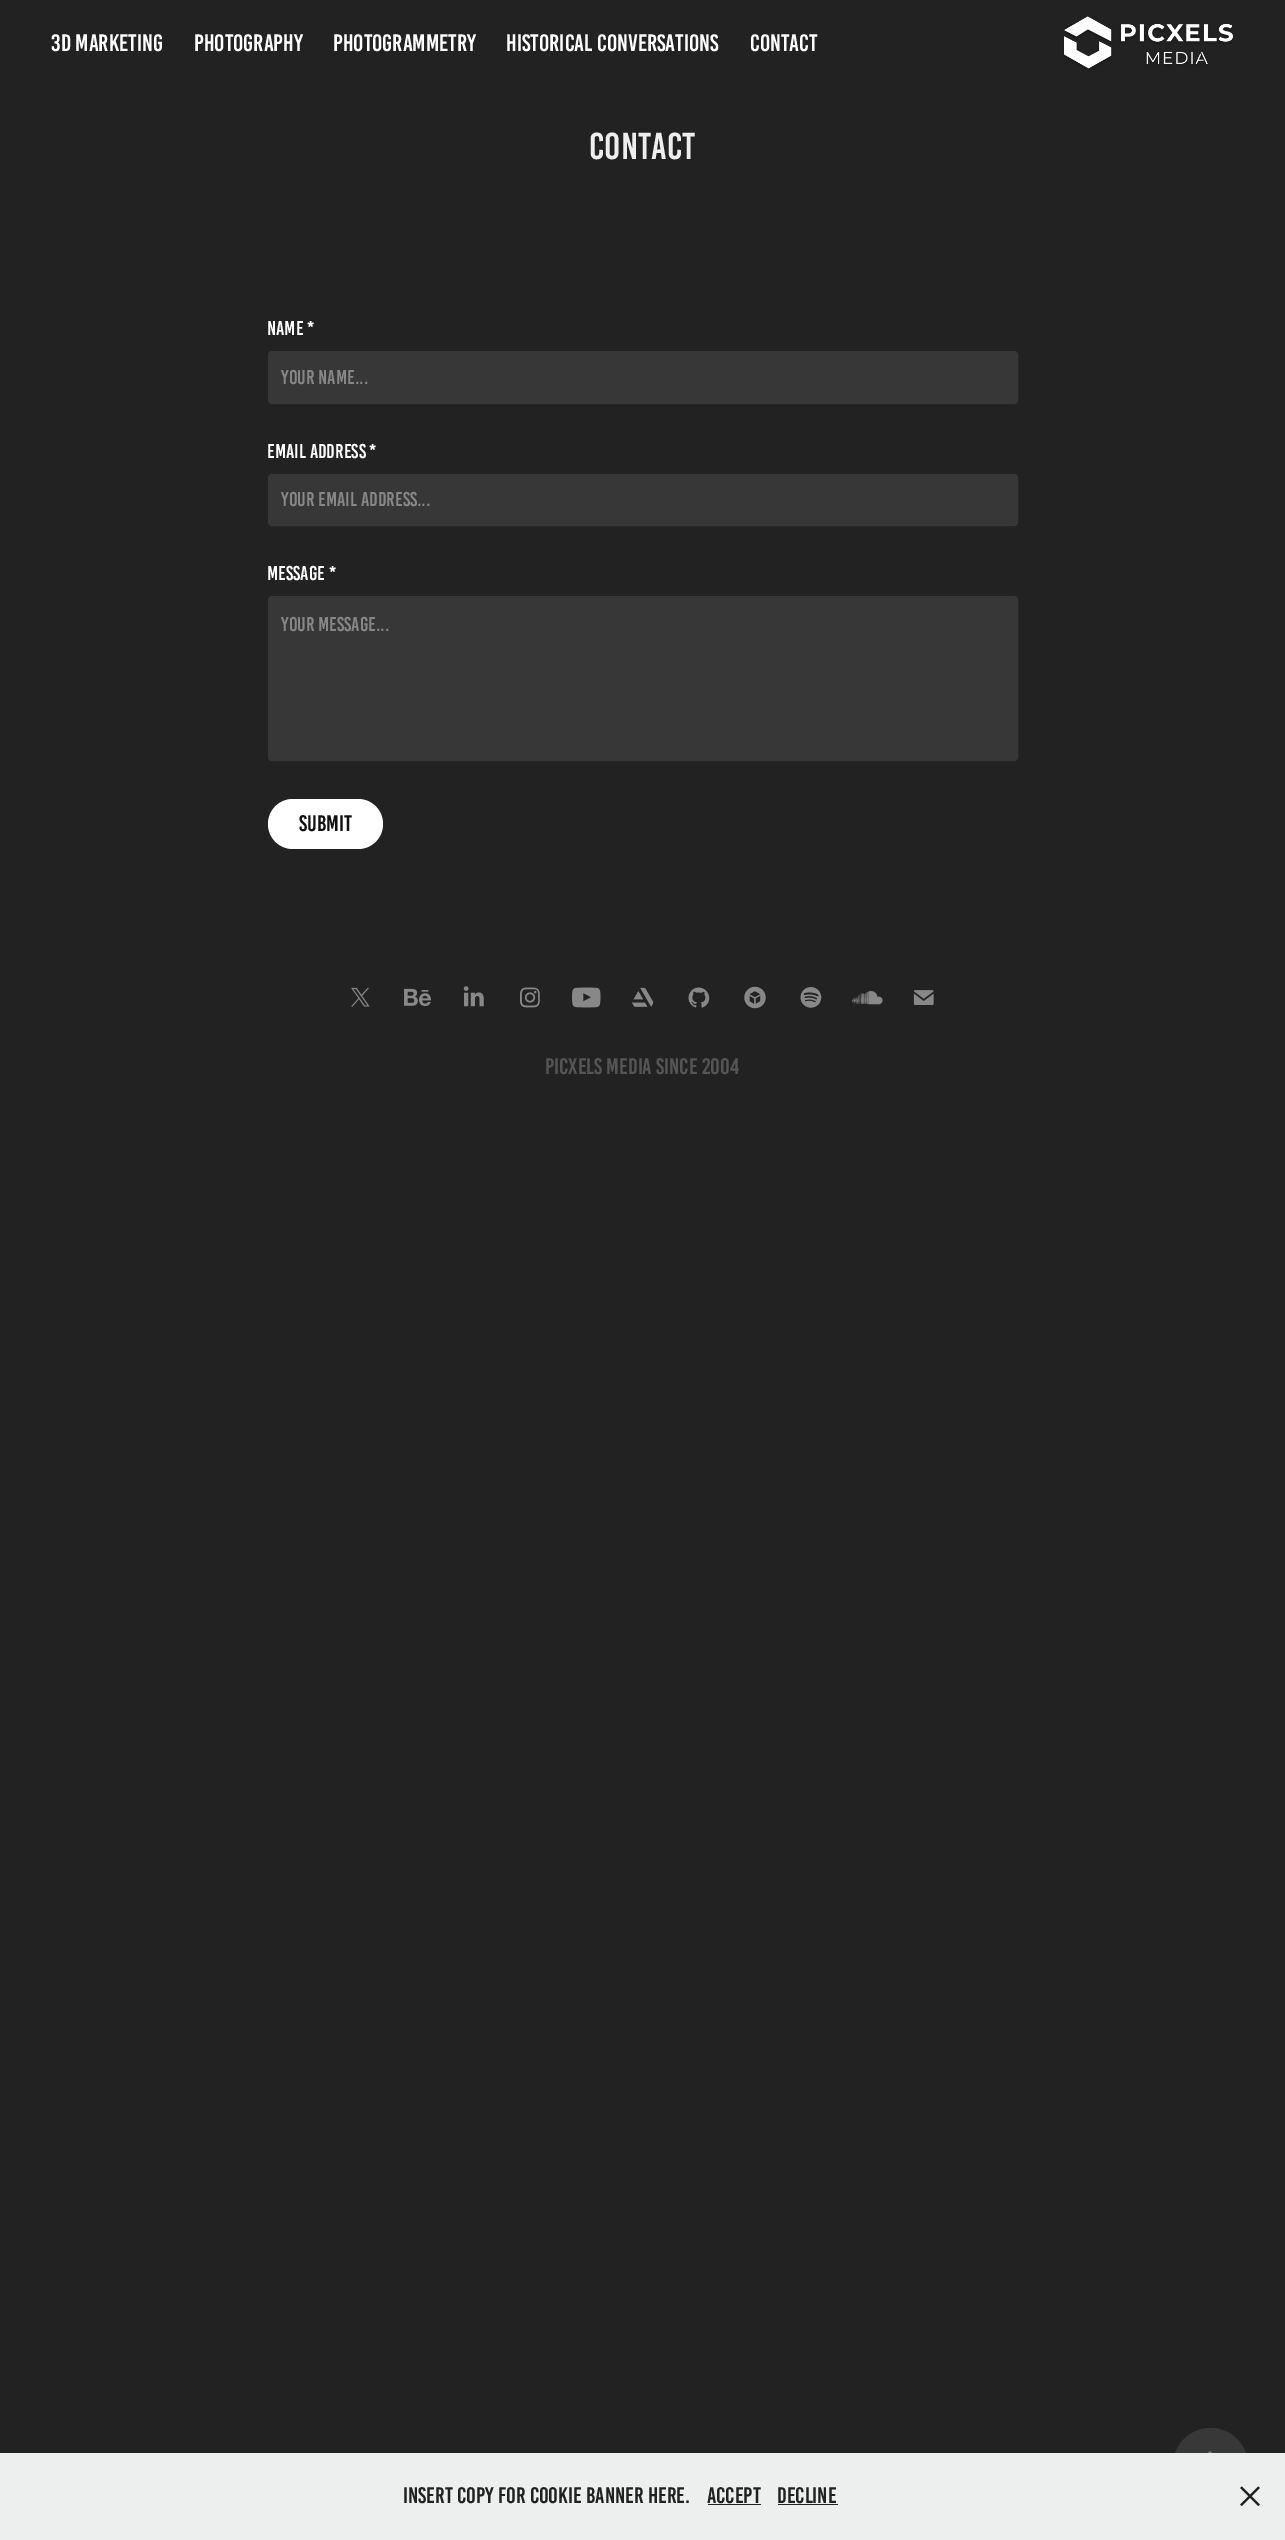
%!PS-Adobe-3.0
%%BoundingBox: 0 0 1285 2540
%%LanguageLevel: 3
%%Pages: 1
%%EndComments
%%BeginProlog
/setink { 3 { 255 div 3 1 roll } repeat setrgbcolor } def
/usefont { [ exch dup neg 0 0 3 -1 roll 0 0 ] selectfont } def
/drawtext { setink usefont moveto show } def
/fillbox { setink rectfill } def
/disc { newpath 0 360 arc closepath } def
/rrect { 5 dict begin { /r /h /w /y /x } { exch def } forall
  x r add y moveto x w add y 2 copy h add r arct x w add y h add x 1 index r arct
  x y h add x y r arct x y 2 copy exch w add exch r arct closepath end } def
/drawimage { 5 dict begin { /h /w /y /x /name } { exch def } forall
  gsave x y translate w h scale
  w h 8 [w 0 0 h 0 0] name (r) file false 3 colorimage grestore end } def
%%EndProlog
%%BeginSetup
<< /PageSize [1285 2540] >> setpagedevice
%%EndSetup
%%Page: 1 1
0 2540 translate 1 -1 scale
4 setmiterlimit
0 0 1285 2540 34 34 34 fillbox
(3D MARKETING) 51 51 /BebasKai-Regular 23.75 255 255 255 drawtext
(PHOTOGRAPHY) 194 51 /BebasKai-Regular 23.75 255 255 255 drawtext
(PHOTOGRAMMETRY) 333 51 /BebasKai-Regular 23.75 255 255 255 drawtext
(HISTORICAL CONVERSATIONS) 506 51 /BebasKai-Regular 23.75 255 255 255 drawtext
(CONTACT) 750 51 /BebasKai-Regular 23.75 255 255 255 drawtext
(assets/img1.rgb) 1063 16 170 54 drawimage
(Contact) 589 159 /BebasKai-Regular 37.5 238 238 238 drawtext
(Name *) 267 335 /BebasKai-Regular 20 255 255 255 drawtext
55 55 55 setink
268.5 351.5 749 52 3.5 rrect gsave fill grestore
stroke
(Your Name...) 281 384 /BebasKai-Regular 20 135 135 135 drawtext
(Email Address *) 267 458 /BebasKai-Regular 20 255 255 255 drawtext
55 55 55 setink
268.5 474.5 749 51 3.5 rrect gsave fill grestore
stroke
(Your Email Address...) 281 506 /BebasKai-Regular 20 135 135 135 drawtext
(Message *) 267 580 /BebasKai-Regular 20 255 255 255 drawtext
55 55 55 setink
268.5 596.5 749 164 3.5 rrect gsave fill grestore
stroke
(Your Message...) 281 631 /BebasKai-Regular 20 135 135 135 drawtext
255 255 255 setink
268 799 115 50 25 rrect fill
(Submit) 299 831 /BebasKai-Regular 22.5 17 17 17 drawtext
56 56 56 setink
1210.5 2465.5 37.5 disc fill
(assets/img2.rgb) 1207 2451 6 2 drawimage
(assets/img3.rgb) 351 987 19 20 drawimage
(assets/img4.rgb) 404 988 27 19 drawimage
(assets/img5.rgb) 463 986 21 21 drawimage
(assets/img6.rgb) 520 987 20 21 drawimage
(assets/img7.rgb) 572 987 29 21 drawimage
(assets/img8.rgb) 631 987 23 20 drawimage
(assets/img9.rgb) 688 987 22 21 drawimage
(assets/img10.rgb) 744 986 22 23 drawimage
(assets/img11.rgb) 800 987 22 21 drawimage
(assets/img12.rgb) 852 991 31 14 drawimage
(assets/img13.rgb) 913 990 21 15 drawimage
(picxels media since 2004) 545 1074 /BebasKai-Regular 22.5 85 85 85 drawtext
0 2453 1285 87 237 238 238 fillbox
(Insert copy for cookie banner here.) 403 2503 /BebasKai-Regular 22.5 33 33 33 drawtext
(Accept) 707 2503 /BebasKai-Regular 22.5 33 33 33 drawtext
708 2504 53 1 33 33 33 fillbox
(Decline) 777 2503 /BebasKai-Regular 22.5 33 33 33 drawtext
778 2504 60 1 33 33 33 fillbox
(assets/img14.rgb) 1240 2486 20 20 drawimage
showpage
%%EOF
